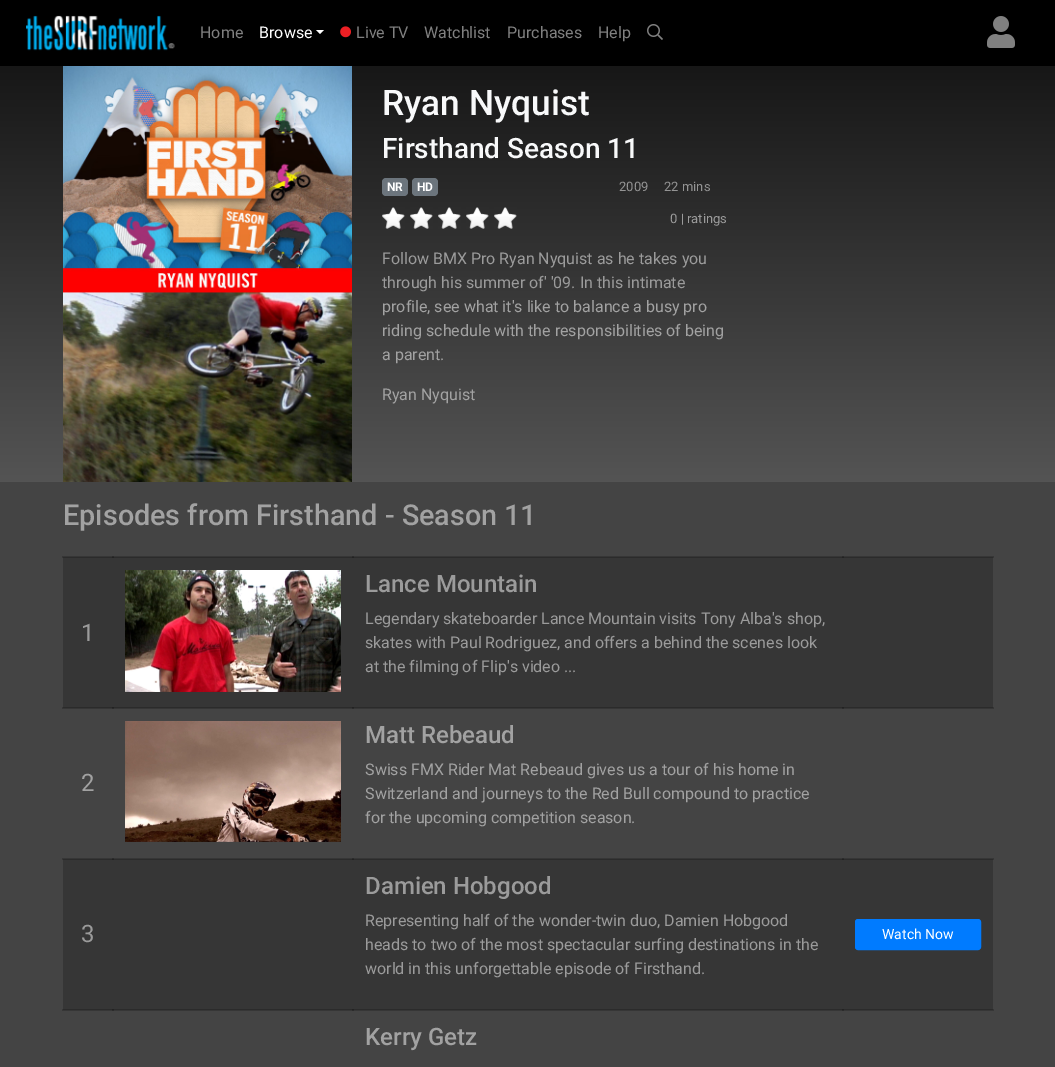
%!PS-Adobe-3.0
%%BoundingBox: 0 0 1055 1067
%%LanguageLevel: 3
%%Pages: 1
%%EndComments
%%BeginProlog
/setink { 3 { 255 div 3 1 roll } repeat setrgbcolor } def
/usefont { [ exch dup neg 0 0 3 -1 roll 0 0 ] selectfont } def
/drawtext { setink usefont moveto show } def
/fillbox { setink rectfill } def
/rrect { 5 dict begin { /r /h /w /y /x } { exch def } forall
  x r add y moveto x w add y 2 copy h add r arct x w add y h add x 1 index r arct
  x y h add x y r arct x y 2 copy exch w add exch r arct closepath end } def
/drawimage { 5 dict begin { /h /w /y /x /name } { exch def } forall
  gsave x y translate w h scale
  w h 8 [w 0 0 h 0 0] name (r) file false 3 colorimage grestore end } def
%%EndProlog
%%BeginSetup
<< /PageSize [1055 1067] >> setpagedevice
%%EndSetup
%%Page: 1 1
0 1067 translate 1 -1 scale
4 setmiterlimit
0 0 1055 1067 255 255 255 fillbox
0 0 1055 66 0 0 0 fillbox
(assets/img1.rgb) 26 15 149 36 drawimage
(Home) 200 38 /Roboto-Regular 16 128 128 128 drawtext
(Browse) 259 38 /Roboto-Regular 16 255 255 255 drawtext
316 30 moveto 324 30 lineto 320 34 lineto closepath fill
(assets/img2.rgb) 340 26 11 12 drawimage
(Live TV) 356 38 /Roboto-Regular 16 128 128 128 drawtext
(Watchlist) 424 38 /Roboto-Regular 16 128 128 128 drawtext
(Purchases) 507 38 /Roboto-Regular 16 128 128 128 drawtext
(Help) 598 38 /Roboto-Regular 16 128 128 128 drawtext
(assets/img3.rgb) 647 24 16 16 drawimage
(assets/img4.rgb) 987 16 28 32 drawimage
gsave 0 66 moveto 1055 66 lineto 1055 482 lineto 0 482 lineto closepath clip newpath
<< /ShadingType 2 /ColorSpace /DeviceRGB /Coords [528 66 528 482] /Extend [true true] /Function << /FunctionType 2 /Domain [0 1] /C0 [0.09 0.09 0.09] /C1 [0.329 0.329 0.329] /N 1 >> >> shfill grestore
(assets/img5.rgb) 63 66 289 416 drawimage
(Ryan Nyquist) 382 115 /Roboto-Medium 35.25 248 249 250 drawtext
(Firsthand Season 11) 382 158 /Roboto-Medium 28 248 249 250 drawtext
108 117 125 setink
382 178 26 18 4 rrect fill
(NR) 387 191 /Roboto-Bold 12 255 255 255 drawtext
108 117 125 setink
412 178 26 18 4 rrect fill
(HD) 417 191 /Roboto-Bold 12 255 255 255 drawtext
(2009) 619 191 /Roboto-Regular 13 148 148 148 drawtext
(22 mins) 664 191 /Roboto-Regular 13 148 148 148 drawtext
(assets/img6.rgb) 382 207 23 22 drawimage
(assets/img6.rgb) 410 207 23 22 drawimage
(assets/img6.rgb) 438 207 23 22 drawimage
(assets/img6.rgb) 466 207 23 22 drawimage
(assets/img6.rgb) 494 207 23 22 drawimage
(0 | ratings) 670 223 /Roboto-Regular 13 155 155 155 drawtext
(Follow BMX Pro Ryan Nyquist as he takes you) 382 264 /Roboto-Regular 16 155 155 155 drawtext
(through his summer of' '09. In this intimate) 382 288 /Roboto-Regular 16 155 155 155 drawtext
(profile, see what it's like to balance a busy pro) 382 312 /Roboto-Regular 16 162 162 162 drawtext
(riding schedule with the responsibilities of being) 382 336 /Roboto-Regular 16 162 162 162 drawtext
(a parent.) 382 360 /Roboto-Regular 16 162 162 162 drawtext
(Ryan Nyquist) 382 400 /Roboto-Regular 16 162 162 162 drawtext
0 482 1055 585 68 68 68 fillbox
62 556 52 2 54 54 54 fillbox
112 556 732 1 54 54 54 fillbox
112 556 2 1 43 43 43 fillbox
352 556 2 1 43 43 43 fillbox
842 556 152 2 54 54 54 fillbox
842 556 2 1 43 43 43 fillbox
62 707 52 2 54 54 54 fillbox
112 708 732 1 54 54 54 fillbox
112 708 2 1 43 43 43 fillbox
352 708 2 1 43 43 43 fillbox
842 707 152 2 54 54 54 fillbox
842 708 2 1 43 43 43 fillbox
62 858 52 2 54 54 54 fillbox
112 858 732 1 54 54 54 fillbox
112 858 2 1 43 43 43 fillbox
352 858 2 1 43 43 43 fillbox
842 858 152 2 54 54 54 fillbox
842 858 2 1 43 43 43 fillbox
62 1009 52 2 54 54 54 fillbox
112 1010 732 1 54 54 54 fillbox
112 1010 2 1 43 43 43 fillbox
352 1010 2 1 43 43 43 fillbox
842 1009 152 2 54 54 54 fillbox
842 1010 2 1 43 43 43 fillbox
(Episodes from Firsthand - Season 11) 63 525 /Roboto-Medium 28.75 162 162 162 drawtext
63 558 930 149 54 54 54 fillbox
63 557 930 1 43 43 43 fillbox
112 557 2 1 34 34 34 fillbox
352 557 2 1 34 34 34 fillbox
842 557 2 1 34 34 34 fillbox
63 707 930 1 43 43 43 fillbox
112 707 2 1 34 34 34 fillbox
352 707 2 1 34 34 34 fillbox
842 707 2 1 34 34 34 fillbox
(1) 81 641 /Roboto-Regular 24 155 155 155 drawtext
(assets/img7.rgb) 125 570 216 122 drawimage
(Lance Mountain) 365 592 /Roboto-Medium 24 155 155 155 drawtext
(Legendary skateboarder Lance Mountain visits Tony Alba's shop,) 365 624 /Roboto-Regular 16 155 155 155 drawtext
(skates with Paul Rodriguez, and offers a behind the scenes look) 365 648 /Roboto-Regular 16 155 155 155 drawtext
(at the filming of Flip's video ...) 365 672 /Roboto-Regular 16 155 155 155 drawtext
(2) 81 791 /Roboto-Regular 24 162 162 162 drawtext
(assets/img8.rgb) 125 721 216 121 drawimage
(Matt Rebeaud) 365 743 /Roboto-Medium 24 162 162 162 drawtext
(Swiss FMX Rider Mat Rebeaud gives us a tour of his home in) 365 775 /Roboto-Regular 16 162 162 162 drawtext
(Switzerland and journeys to the Red Bull compound to practice) 365 799 /Roboto-Regular 16 162 162 162 drawtext
(for the upcoming competition season.) 365 823 /Roboto-Regular 16 162 162 162 drawtext
63 860 930 149 54 54 54 fillbox
63 859 930 1 43 43 43 fillbox
112 859 2 1 34 34 34 fillbox
352 859 2 1 34 34 34 fillbox
842 859 2 1 34 34 34 fillbox
63 1009 930 1 43 43 43 fillbox
112 1009 2 1 34 34 34 fillbox
352 1009 2 1 34 34 34 fillbox
842 1009 2 1 34 34 34 fillbox
(3) 81 942 /Roboto-Regular 24 155 155 155 drawtext
(Damien Hobgood) 365 894 /Roboto-Medium 24 155 155 155 drawtext
(Representing half of the wonder-twin duo, Damien Hobgood) 365 926 /Roboto-Regular 16 155 155 155 drawtext
(heads to two of the most spectacular surfing destinations in the) 365 950 /Roboto-Regular 16 155 155 155 drawtext
(world in this unforgettable episode of Firsthand.) 365 974 /Roboto-Regular 16 155 155 155 drawtext
0 123 255 setink
855.5 919.5 125 30 2.5 rrect gsave fill grestore
stroke
(Watch Now) 882 939 /Roboto-Regular 14 255 255 255 drawtext
(Kerry Getz) 365 1045 /Roboto-Medium 24 162 162 162 drawtext
showpage
%%EOF
